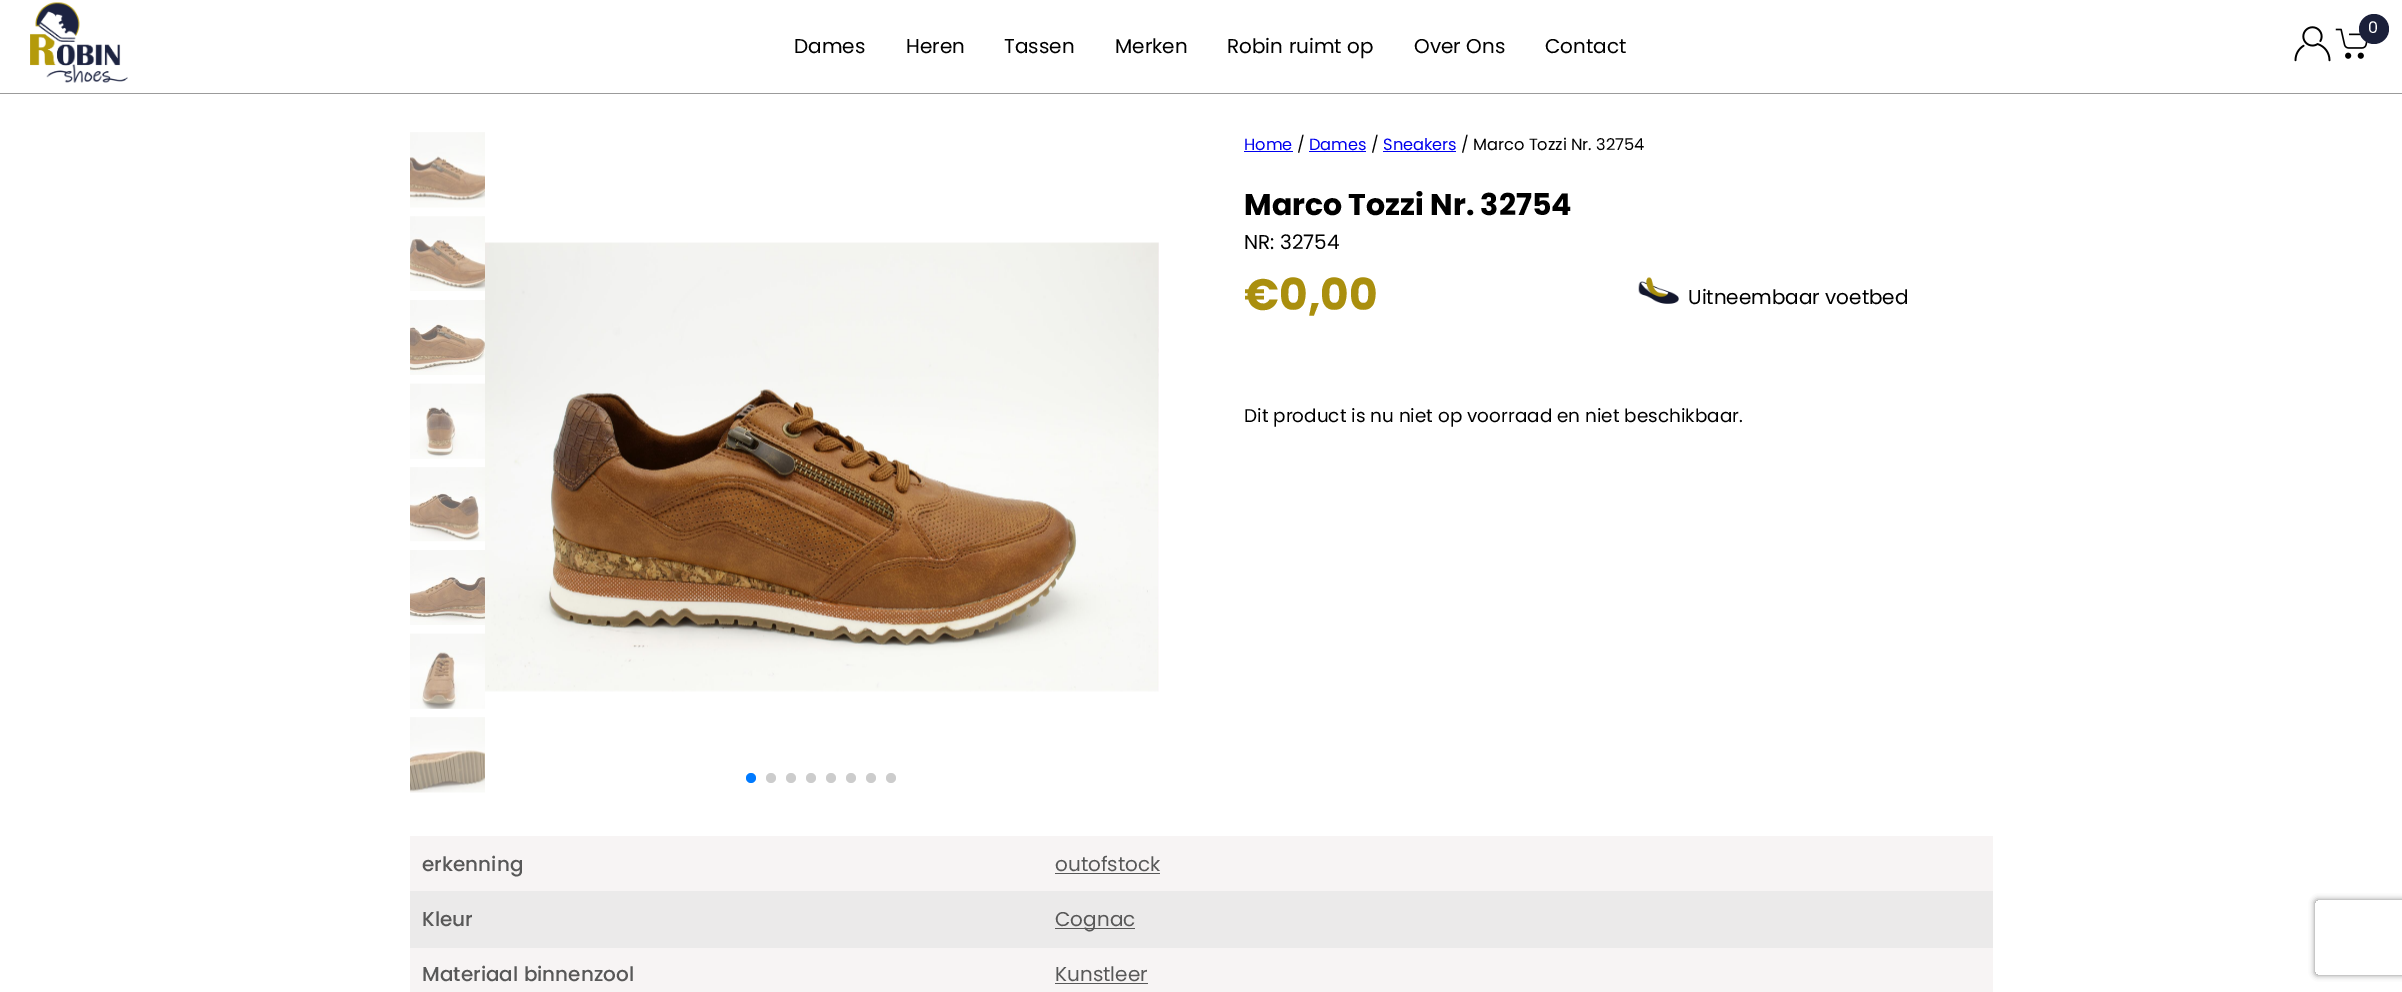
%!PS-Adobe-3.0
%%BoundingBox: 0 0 2402 992
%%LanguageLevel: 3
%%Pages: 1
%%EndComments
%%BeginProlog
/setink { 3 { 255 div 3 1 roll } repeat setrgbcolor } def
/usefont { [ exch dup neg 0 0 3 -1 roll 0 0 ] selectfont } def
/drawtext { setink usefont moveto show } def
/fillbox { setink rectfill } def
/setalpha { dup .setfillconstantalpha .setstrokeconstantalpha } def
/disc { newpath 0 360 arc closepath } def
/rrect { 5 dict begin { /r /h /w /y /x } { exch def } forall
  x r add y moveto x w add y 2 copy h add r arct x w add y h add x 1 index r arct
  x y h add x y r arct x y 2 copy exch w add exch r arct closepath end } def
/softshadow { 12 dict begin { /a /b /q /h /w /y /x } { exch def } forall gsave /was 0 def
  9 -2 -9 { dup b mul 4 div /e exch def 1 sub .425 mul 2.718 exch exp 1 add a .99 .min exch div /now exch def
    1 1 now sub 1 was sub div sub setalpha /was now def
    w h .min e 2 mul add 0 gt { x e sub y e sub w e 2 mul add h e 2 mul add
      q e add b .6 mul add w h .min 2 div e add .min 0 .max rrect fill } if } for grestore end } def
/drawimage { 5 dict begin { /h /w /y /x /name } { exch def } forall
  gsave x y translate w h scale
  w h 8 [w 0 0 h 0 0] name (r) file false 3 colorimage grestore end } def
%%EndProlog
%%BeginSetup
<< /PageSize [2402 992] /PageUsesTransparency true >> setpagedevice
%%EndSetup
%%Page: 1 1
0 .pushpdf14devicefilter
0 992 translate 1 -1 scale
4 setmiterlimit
0 0 2402 992 255 255 255 fillbox
(assets/img1.rgb) 30 2 98 81 drawimage
(assets/img2.rgb) 2294 26 37 36 drawimage
(assets/img3.rgb) 2335 28 33 31 drawimage
27 32 58 setink
2374 29 15 disc fill
(0) 2368 33 /Poppins-Regular 16 255 255 255 drawtext
(Dames) 794 53 /Poppins-Regular 20 0 0 0 drawtext
(Heren) 906 53 /Poppins-Regular 20 0 0 0 drawtext
(Tassen) 1004 53 /Poppins-Regular 20 0 0 0 drawtext
(Merken) 1115 53 /Poppins-Regular 20 0 0 0 drawtext
0 93 2402 1 155 155 155 fillbox
(Robin ruimt op) 1227 53 /Poppins-Regular 20 0 0 0 drawtext
(Over Ons) 1414 53 /Poppins-Regular 20 0 0 0 drawtext
(Contact) 1545 53 /Poppins-Regular 20 0 0 0 drawtext
(assets/img4.rgb) 410 132 75 76 drawimage
(assets/img5.rgb) 410 216 75 75 drawimage
(assets/img6.rgb) 410 300 75 75 drawimage
(assets/img7.rgb) 410 383 75 76 drawimage
(assets/img8.rgb) 410 467 75 75 drawimage
(assets/img9.rgb) 410 550 75 75 drawimage
(assets/img10.rgb) 410 633 75 76 drawimage
(assets/img11.rgb) 410 717 75 76 drawimage
(assets/img12.rgb) 485 242 674 450 drawimage
0 122 255 setink
751 778 5 disc fill
204 204 204 setink
771 778 5 disc fill
791 778 5 disc fill
811 778 5 disc fill
831 778 5 disc fill
851 778 5 disc fill
871 778 5 disc fill
891 778 5 disc fill
(Home) 1244 150 /Poppins-Regular 16.25 0 0 238 drawtext
1244 151 49 1 0 0 238 fillbox
(/) 1297 150 /Poppins-Regular 16.25 0 0 0 drawtext
(Dames) 1309 150 /Poppins-Regular 16.25 0 0 238 drawtext
1309 151 57 1 0 0 238 fillbox
(/) 1371 150 /Poppins-Regular 16.25 0 0 0 drawtext
(Sneakers) 1383 150 /Poppins-Regular 16.25 0 0 238 drawtext
1383 151 73 1 0 0 238 fillbox
(/ Marco Tozzi Nr. 32754) 1461 150 /Poppins-Regular 16.25 0 0 0 drawtext
(Marco Tozzi Nr. 32754) 1244 215 /Poppins-Bold 30 0 0 0 drawtext
(NR:) 1244 249 /Poppins-Regular 20 0 0 0 drawtext
(32754) 1280 249 /Poppins-Regular 20 0 0 0 drawtext
(€0,00) 1244 310 /Poppins-Bold 44 170 143 14 drawtext
(assets/img13.rgb) 1638 277 41 27 drawimage
(Uitneembaar voetbed) 1688 304 /Poppins-Regular 20 0 0 0 drawtext
(Dit product is nu niet op voorraad en niet beschikbaar.) 1244 422 /Poppins-Regular 18.4 0 0 0 drawtext
410 836 1583 55 247 244 244 fillbox
(erkenning) 422 871 /Poppins-Medium 20 88 88 88 drawtext
(outofstock) 1055 871 /Poppins-Regular 20 88 88 88 drawtext
1055 873 105 1 88 88 88 fillbox
410 891 1583 57 235 234 234 fillbox
(Kleur) 422 926 /Poppins-Medium 20 88 88 88 drawtext
1055 928 80 1 88 88 88 fillbox
(Cognac) 1055 926 /Poppins-Regular 20 88 88 88 drawtext
410 948 1583 44 247 244 244 fillbox
(Materiaal binnenzool) 422 981 /Poppins-Medium 20 88 88 88 drawtext
(Kunstleer) 1055 981 /Poppins-Regular 20 88 88 88 drawtext
1055 983 93 1 88 88 88 fillbox
gsave
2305 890 moveto 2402 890 lineto 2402 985 lineto 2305 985 lineto closepath 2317.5 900 moveto 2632.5 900 lineto 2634 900 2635 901 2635 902.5 curveto 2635 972.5 lineto 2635 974 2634 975 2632.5 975 curveto 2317.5 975 lineto 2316 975 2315 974 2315 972.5 curveto 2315 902.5 lineto 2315 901 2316 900 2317.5 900 curveto closepath eoclip newpath
128 128 128 setink
2315 900 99 75 2.5 3 1 softshadow
grestore
.poppdf14devicefilter showpage
%%EOF
